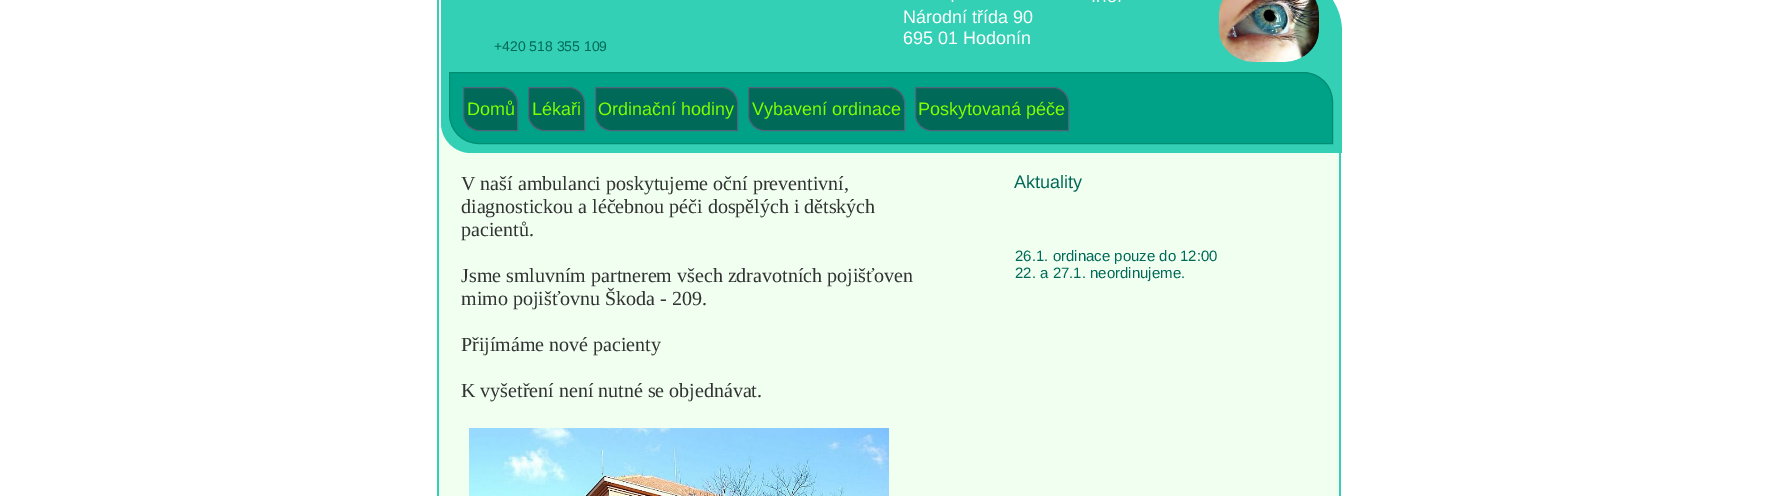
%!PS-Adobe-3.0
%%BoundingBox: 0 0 1774 496
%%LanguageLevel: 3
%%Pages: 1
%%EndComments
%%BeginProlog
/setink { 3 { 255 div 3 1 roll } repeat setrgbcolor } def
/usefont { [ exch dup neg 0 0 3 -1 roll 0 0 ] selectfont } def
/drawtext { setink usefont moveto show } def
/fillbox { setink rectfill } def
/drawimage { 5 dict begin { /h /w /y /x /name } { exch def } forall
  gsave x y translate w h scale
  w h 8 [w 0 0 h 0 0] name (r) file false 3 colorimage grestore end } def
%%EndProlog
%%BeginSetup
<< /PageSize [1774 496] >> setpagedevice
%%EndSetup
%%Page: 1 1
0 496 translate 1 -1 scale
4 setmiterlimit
0 0 1774 496 255 255 255 fillbox
439 132 900 364 240 255 240 fillbox
52 208 182 setink
441 -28 moveto 1282 -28 lineto 1315 -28 1342 -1 1342 32 curveto 1342 153 lineto 471 153 lineto 454.5 153 441 139.5 441 123 curveto closepath fill
(+420 518 355 109) 494 51 /LiberationSans-Regular 14 0 105 87 drawtext
(.) 950 2 /LiberationSans-Regular 18 255 255 255 drawtext
(.r.o.) 1091 2 /LiberationSans-Regular 18 255 255 255 drawtext
(Národní třída 90) 903 23 /LiberationSans-Regular 18 255 255 255 drawtext
(695 01 Hodonín) 903 44 /LiberationSans-Regular 18 255 255 255 drawtext
(assets/img1.rgb) 1219 0 100 62 drawimage
0 162 135 setink
449.5 72.5 moveto 1303 72.5 lineto 1319.5 72.5 1332.5 85.5 1332.5 102 curveto 1332.5 143.5 lineto 479 143.5 lineto 462.5 143.5 449.5 130.5 449.5 114 curveto closepath gsave fill grestore
0 142 115 setink
stroke
0 105 87 setink
463.5 87.5 moveto 502 87.5 lineto 510.5 87.5 517.5 94.5 517.5 103 curveto 517.5 130.5 lineto 479 130.5 lineto 470.5 130.5 463.5 123.5 463.5 115 curveto closepath gsave fill grestore
78 102 125 setink
stroke
(Domů) 467 115 /LiberationSans-Regular 18 127 255 0 drawtext
0 105 87 setink
528.5 87.5 moveto 569 87.5 lineto 577.5 87.5 584.5 94.5 584.5 103 curveto 584.5 130.5 lineto 544 130.5 lineto 535.5 130.5 528.5 123.5 528.5 115 curveto closepath gsave fill grestore
78 102 125 setink
stroke
(Lékaři) 532 115 /LiberationSans-Regular 18 127 255 0 drawtext
0 105 87 setink
595.5 87.5 moveto 722 87.5 lineto 730.5 87.5 737.5 94.5 737.5 103 curveto 737.5 130.5 lineto 611 130.5 lineto 602.5 130.5 595.5 123.5 595.5 115 curveto closepath gsave fill grestore
78 102 125 setink
stroke
(Ordinační hodiny) 598 115 /LiberationSans-Regular 18 127 255 0 drawtext
0 105 87 setink
748.5 87.5 moveto 889 87.5 lineto 897.5 87.5 904.5 94.5 904.5 103 curveto 904.5 130.5 lineto 764 130.5 lineto 755.5 130.5 748.5 123.5 748.5 115 curveto closepath gsave fill grestore
78 102 125 setink
stroke
(Vybavení ordinace) 752 115 /LiberationSans-Regular 18 127 255 0 drawtext
0 105 87 setink
915.5 87.5 moveto 1053 87.5 lineto 1061.5 87.5 1068.5 94.5 1068.5 103 curveto 1068.5 130.5 lineto 931 130.5 lineto 922.5 130.5 915.5 123.5 915.5 115 curveto closepath gsave fill grestore
78 102 125 setink
stroke
(Poskytovaná péče) 918 115 /LiberationSans-Regular 18 127 255 0 drawtext
1339 153 2 343 52 208 182 fillbox
437 0 2 496 52 208 182 fillbox
(V naší ambulanci poskytujeme oční preventivní,) 461 190 /LiberationSerif-Regular 20 51 51 51 drawtext
(diagnostickou a léčebnou péči dospělých i dětských) 461 213 /LiberationSerif-Regular 20 51 51 51 drawtext
(pacientů.) 461 236 /LiberationSerif-Regular 20 51 51 51 drawtext
(Jsme smluvním partnerem všech zdravotních pojišťoven) 461 282 /LiberationSerif-Regular 20 51 51 51 drawtext
(mimo pojišťovnu Škoda - 209.) 461 305 /LiberationSerif-Regular 20 51 51 51 drawtext
(Přijímáme nové pacienty) 461 351 /LiberationSerif-Regular 20 51 51 51 drawtext
(K vyšetření není nutné se objednávat.) 461 397 /LiberationSerif-Regular 20 51 51 51 drawtext
(Aktuality) 1014 188 /LiberationSans-Regular 18 0 105 87 drawtext
(26.1. ordinace pouze do 12:00) 1015 261 /LiberationSans-Regular 15 0 105 87 drawtext
(22. a 27.1. neordinujeme.) 1015 278 /LiberationSans-Regular 15 0 105 87 drawtext
(assets/img2.rgb) 469 428 420 68 drawimage
showpage
%%EOF
